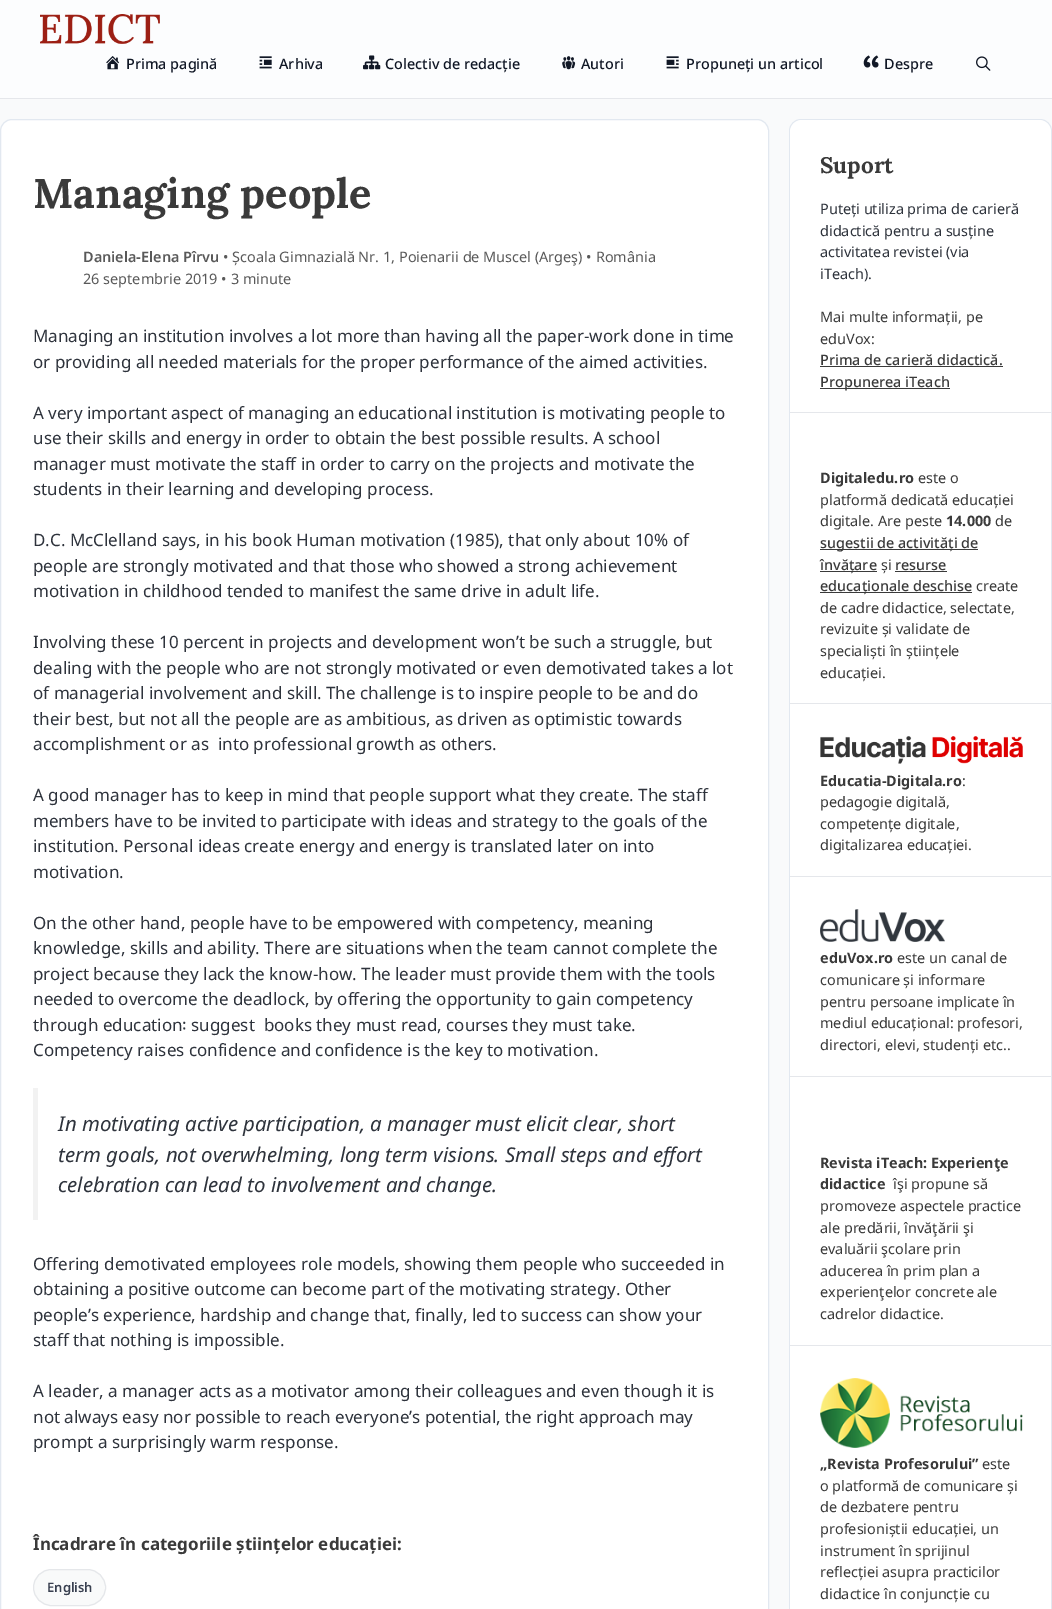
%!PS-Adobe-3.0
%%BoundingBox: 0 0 1052 1609
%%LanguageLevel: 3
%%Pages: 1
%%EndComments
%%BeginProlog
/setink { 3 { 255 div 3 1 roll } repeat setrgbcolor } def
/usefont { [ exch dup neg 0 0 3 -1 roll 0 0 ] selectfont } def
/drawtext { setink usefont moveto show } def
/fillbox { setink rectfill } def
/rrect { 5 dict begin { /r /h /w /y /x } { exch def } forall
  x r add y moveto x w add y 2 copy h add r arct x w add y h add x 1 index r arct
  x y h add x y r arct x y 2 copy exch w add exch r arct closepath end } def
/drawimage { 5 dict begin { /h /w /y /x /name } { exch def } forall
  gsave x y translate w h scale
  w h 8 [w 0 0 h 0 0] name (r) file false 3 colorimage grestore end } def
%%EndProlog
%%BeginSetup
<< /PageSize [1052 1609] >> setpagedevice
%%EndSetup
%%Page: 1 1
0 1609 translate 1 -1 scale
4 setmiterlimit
0 0 1052 1609 249 250 251 fillbox
0 0 1052 98 252 253 254 fillbox
0 98 1052 1 229 231 235 fillbox
(assets/img1.rgb) 40 14 120 30 drawimage
(assets/img2.rgb) 106 56 14 14 drawimage
(Prima pagină) 126 69 /NotoSans-Medium 14.4 17 24 38 drawtext
(assets/img3.rgb) 259 56 13 13 drawimage
(Arhiva) 279 69 /NotoSans-Medium 14.4 17 24 38 drawtext
(assets/img4.rgb) 363 55 18 15 drawimage
(Colectiv de redacție) 385 69 /NotoSans-Medium 14.4 17 24 38 drawtext
(assets/img5.rgb) 562 56 14 14 drawimage
(Autori) 581 69 /NotoSans-Medium 14.4 17 24 38 drawtext
(assets/img6.rgb) 666 56 13 13 drawimage
(Propuneți un articol) 686 69 /NotoSans-Medium 14.4 17 24 38 drawtext
(assets/img7.rgb) 863 55 16 13 drawimage
(Despre) 884 69 /NotoSans-Medium 14.4 17 24 38 drawtext
(assets/img8.rgb) 976 56 15 15 drawimage
255 255 255 setink
0.5 119.5 768 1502 11.5 rrect gsave fill grestore
226 232 240 setink
stroke
(Managing people) 33 208 /Lora-Bold 41.5 58 58 58 drawtext
(Daniela-Elena Pîrvu) 83 262 /NotoSans-SemiBold 14.45 89 89 89 drawtext
(• Școala Gimnazială Nr. 1, Poienarii de Muscel \(Argeş\) • România) 223 262 /NotoSans-Regular 14.45 89 89 89 drawtext
(26 septembrie 2019 • 3 minute) 83 284 /NotoSans-Regular 14.45 89 89 89 drawtext
(Managing an institution involves a lot more than having all the paper-work done in time) 33 342 /NotoSans-Regular 17 46 51 60 drawtext
(or providing all needed materials for the proper performance of the aimed activities.) 33 368 /NotoSans-Regular 17 46 51 60 drawtext
(A very important aspect of managing an educational institution is motivating people to) 33 419 /NotoSans-Regular 17 46 51 60 drawtext
(use their skills and energy in order to obtain the best possible results. A school) 33 444 /NotoSans-Regular 17 46 51 60 drawtext
(manager must motivate the staff in order to carry on the projects and motivate the) 33 470 /NotoSans-Regular 17 46 51 60 drawtext
(students in their learning and developing process.) 33 495 /NotoSans-Regular 17 46 51 60 drawtext
(D.C. McClelland says, in his book Human motivation \(1985\), that only about 10% of) 33 546 /NotoSans-Regular 17 46 51 60 drawtext
(people are strongly motivated and that those who showed a strong achievement) 33 572 /NotoSans-Regular 17 46 51 60 drawtext
(motivation in childhood tended to manifest the same drive in adult life.) 33 597 /NotoSans-Regular 17 46 51 60 drawtext
(Involving these 10 percent in projects and development won’t be such a struggle, but) 33 648 /NotoSans-Regular 17 46 51 60 drawtext
(dealing with the people who are not strongly motivated or even demotivated takes a lot) 33 674 /NotoSans-Regular 17 46 51 60 drawtext
(of managerial involvement and skill. The challenge is to inspire people to be and do) 33 699 /NotoSans-Regular 17 46 51 60 drawtext
(their best, but not all the people are as ambitious, as driven as optimistic towards) 33 725 /NotoSans-Regular 17 46 51 60 drawtext
(accomplishment or as  into professional growth as others.) 33 750 /NotoSans-Regular 17 46 51 60 drawtext
(A good manager has to keep in mind that people support what they create. The staff) 33 801 /NotoSans-Regular 17 46 51 60 drawtext
(members have to be invited to participate with ideas and strategy to the goals of the) 33 827 /NotoSans-Regular 17 46 51 60 drawtext
(institution. Personal ideas create energy and energy is translated later on into) 33 852 /NotoSans-Regular 17 46 51 60 drawtext
(motivation.) 33 878 /NotoSans-Regular 17 46 51 60 drawtext
(On the other hand, people have to be empowered with competency, meaning) 33 929 /NotoSans-Regular 17 46 51 60 drawtext
(knowledge, skills and ability. There are situations when the team cannot complete the) 33 954 /NotoSans-Regular 17 46 51 60 drawtext
(project because they lack the know-how. The leader must provide them with the tools) 33 980 /NotoSans-Regular 17 46 51 60 drawtext
(needed to overcome the deadlock, by offering the opportunity to gain competency) 33 1005 /NotoSans-Regular 17 46 51 60 drawtext
(through education꞉ suggest  books they must read, courses they must take.) 33 1031 /NotoSans-Regular 17 46 51 60 drawtext
(Competency raises confidence and confidence is the key to motivation.) 33 1056 /NotoSans-Regular 17 46 51 60 drawtext
33 1088 5 132 242 242 242 fillbox
(In motivating active participation, a manager must elicit clear, short) 58 1131 /NotoSans-Italic 20.4 46 51 60 drawtext
(term goals, not overwhelming, long term visions. Small steps and effort) 58 1162 /NotoSans-Italic 20.4 46 51 60 drawtext
(celebration can lead to involvement and change.) 58 1192 /NotoSans-Italic 20.4 46 51 60 drawtext
(Offering demotivated employees role models, showing them people who succeeded in) 33 1270 /NotoSans-Regular 17 46 51 60 drawtext
(obtaining a positive outcome can become part of the motivating strategy. Other) 33 1295 /NotoSans-Regular 17 46 51 60 drawtext
(people’s experience, hardship and change that, finally, led to success can show your) 33 1321 /NotoSans-Regular 17 46 51 60 drawtext
(staff that nothing is impossible.) 33 1346 /NotoSans-Regular 17 46 51 60 drawtext
(A leader, a manager acts as a motivator among their colleagues and even though it is) 33 1397 /NotoSans-Regular 17 46 51 60 drawtext
(not always easy nor possible to reach everyone’s potential, the right approach may) 33 1423 /NotoSans-Regular 17 46 51 60 drawtext
(prompt a surprisingly warm response.) 33 1448 /NotoSans-Regular 17 46 51 60 drawtext
(Încadrare în categoriile științelor educației:) 33 1550 /NotoSans-Bold 17 58 58 58 drawtext
249 250 250 setink
33.5 1569.5 72 36 18 rrect gsave fill grestore
229 231 234 setink
stroke
(English) 47 1592 /NotoSans-SemiBold 13 57 64 80 drawtext
226 232 240 setink
789.5 119.5 262 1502 11.5 rrect stroke
255 255 255 setink
802 120 moveto 1039 120 lineto 1045.5 120 1051 125.5 1051 132 curveto 1051 413 lineto 790 413 lineto 790 132 lineto 790 125.5 795.5 120 802 120 curveto closepath fill
790 412 261 1 229 231 235 fillbox
(Suport) 820 173 /Lora-Bold 22.5 58 58 58 drawtext
(Puteți utiliza prima de carieră) 820 214 /NotoSans-Regular 14.4 46 51 60 drawtext
(didactică pentru a susține) 820 236 /NotoSans-Regular 14.4 46 51 60 drawtext
(activitatea revistei \(via) 820 257 /NotoSans-Regular 14.4 46 51 60 drawtext
(iTeach\).) 820 279 /NotoSans-Regular 14.4 46 51 60 drawtext
(Mai multe informații, pe) 820 322 /NotoSans-Regular 14.4 58 58 58 drawtext
(eduVox:) 820 344 /NotoSans-Regular 14.4 58 58 58 drawtext
(Prima de carieră didactică.) 820 365 /NotoSans-Medium 14.4 58 58 58 drawtext
820 366 183 1 58 58 58 fillbox
820 388 130 1 58 58 58 fillbox
(Propunerea iTeach) 820 387 /NotoSans-Medium 14.4 58 58 58 drawtext
790 413 261 290 255 255 255 fillbox
790 703 261 1 229 231 235 fillbox
(Digitaledu.ro) 820 483 /NotoSans-Bold 14.4 58 58 58 drawtext
(este o) 918 483 /NotoSans-Regular 14.4 58 58 58 drawtext
(platformă dedicată educației) 820 505 /NotoSans-Regular 14.4 58 58 58 drawtext
(digitale. Are peste) 820 526 /NotoSans-Regular 14.4 58 58 58 drawtext
(14.000) 946 526 /NotoSans-Bold 14.4 58 58 58 drawtext
(de) 995 526 /NotoSans-Regular 14.4 58 58 58 drawtext
820 549 158 1 58 58 58 fillbox
(sugestii de activități de) 820 548 /NotoSans-Medium 14.4 58 58 58 drawtext
820 571 57 1 58 58 58 fillbox
(învățare) 820 570 /NotoSans-Medium 14.4 58 58 58 drawtext
(și) 881 570 /NotoSans-Regular 14.4 58 58 58 drawtext
(resurse) 895 570 /NotoSans-Medium 14.4 58 58 58 drawtext
895 571 52 1 58 58 58 fillbox
820 592 152 1 58 58 58 fillbox
(educaționale deschise) 820 591 /NotoSans-Medium 14.4 58 58 58 drawtext
(create) 976 591 /NotoSans-Regular 14.4 58 58 58 drawtext
(de cadre didactice, selectate,) 820 613 /NotoSans-Regular 14.4 58 58 58 drawtext
(revizuite și validate de) 820 634 /NotoSans-Regular 14.4 58 58 58 drawtext
(specialiști în științele) 820 656 /NotoSans-Regular 14.4 58 58 58 drawtext
(educației.) 820 678 /NotoSans-Regular 14.4 58 58 58 drawtext
790 704 261 172 255 255 255 fillbox
790 876 261 1 229 231 235 fillbox
(assets/img9.rgb) 820 736 203 28 drawimage
(Educatia-Digitala.ro) 820 786 /NotoSans-Bold 14.4 58 58 58 drawtext
(:) 962 786 /NotoSans-Regular 14.4 58 58 58 drawtext
(pedagogie digitală,) 820 807 /NotoSans-Regular 14.4 58 58 58 drawtext
(competențe digitale,) 820 829 /NotoSans-Regular 14.4 58 58 58 drawtext
(digitalizarea educației.) 820 850 /NotoSans-Regular 14.4 58 58 58 drawtext
790 877 261 199 255 255 255 fillbox
790 1076 261 1 229 231 235 fillbox
(assets/img10.rgb) 820 909 125 33 drawimage
(eduVox.ro) 820 963 /NotoSans-Bold 14.4 58 58 58 drawtext
(este un canal de) 897 963 /NotoSans-Regular 14.4 58 58 58 drawtext
(comunicare și informare) 820 985 /NotoSans-Regular 14.4 58 58 58 drawtext
(pentru persoane implicate în) 820 1007 /NotoSans-Regular 14.4 58 58 58 drawtext
(mediul educațional: profesori,) 820 1028 /NotoSans-Regular 14.4 58 58 58 drawtext
(directori, elevi, studenți etc..) 820 1050 /NotoSans-Regular 14.4 58 58 58 drawtext
790 1077 261 268 255 255 255 fillbox
790 1345 261 1 229 231 235 fillbox
(Revista iTeach: Experienţe) 820 1168 /NotoSans-Bold 14.4 58 58 58 drawtext
(didactice) 820 1189 /NotoSans-Bold 14.4 58 58 58 drawtext
(îşi propune să) 893 1189 /NotoSans-Regular 14.4 58 58 58 drawtext
(promoveze aspectele practice) 820 1211 /NotoSans-Regular 14.4 58 58 58 drawtext
(ale predării, învăţării şi) 820 1233 /NotoSans-Regular 14.4 58 58 58 drawtext
(evaluării şcolare prin) 820 1254 /NotoSans-Regular 14.4 58 58 58 drawtext
(aducerea în prim plan a) 820 1276 /NotoSans-Regular 14.4 58 58 58 drawtext
(experienţelor concrete ale) 820 1297 /NotoSans-Regular 14.4 58 58 58 drawtext
(cadrelor didactice.) 820 1319 /NotoSans-Regular 14.4 58 58 58 drawtext
790 1346 261 263 255 255 255 fillbox
(assets/img11.rgb) 820 1378 203 70 drawimage
(„Revista Profesorului”) 820 1469 /NotoSans-Bold 14.4 58 58 58 drawtext
(este) 982 1469 /NotoSans-Regular 14.4 58 58 58 drawtext
(o platformă de comunicare și) 820 1491 /NotoSans-Regular 14.4 58 58 58 drawtext
(de dezbatere pentru) 820 1512 /NotoSans-Regular 14.4 58 58 58 drawtext
(profesioniștii educației, un) 820 1534 /NotoSans-Regular 14.4 58 58 58 drawtext
(instrument în sprijinul) 820 1556 /NotoSans-Regular 14.4 58 58 58 drawtext
(reflecției asupra practicilor) 820 1577 /NotoSans-Regular 14.4 58 58 58 drawtext
(didactice în conjuncție cu) 820 1599 /NotoSans-Regular 14.4 58 58 58 drawtext
showpage
%%EOF
